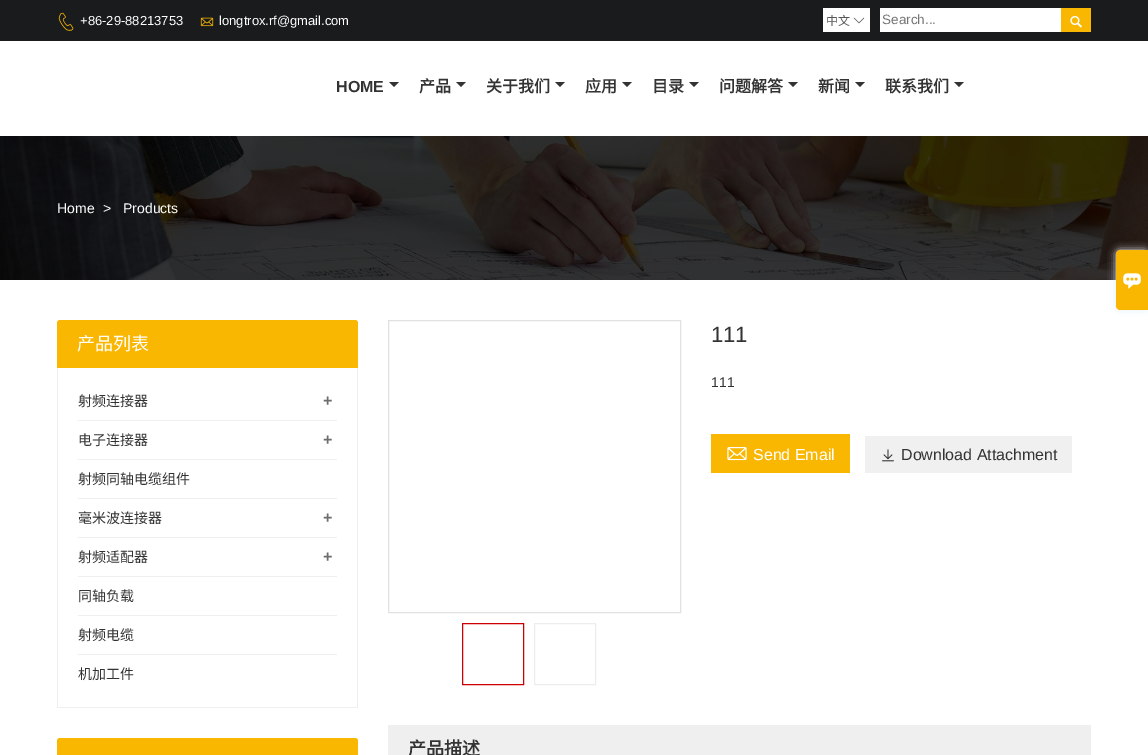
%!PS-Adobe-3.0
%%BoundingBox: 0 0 1148 755
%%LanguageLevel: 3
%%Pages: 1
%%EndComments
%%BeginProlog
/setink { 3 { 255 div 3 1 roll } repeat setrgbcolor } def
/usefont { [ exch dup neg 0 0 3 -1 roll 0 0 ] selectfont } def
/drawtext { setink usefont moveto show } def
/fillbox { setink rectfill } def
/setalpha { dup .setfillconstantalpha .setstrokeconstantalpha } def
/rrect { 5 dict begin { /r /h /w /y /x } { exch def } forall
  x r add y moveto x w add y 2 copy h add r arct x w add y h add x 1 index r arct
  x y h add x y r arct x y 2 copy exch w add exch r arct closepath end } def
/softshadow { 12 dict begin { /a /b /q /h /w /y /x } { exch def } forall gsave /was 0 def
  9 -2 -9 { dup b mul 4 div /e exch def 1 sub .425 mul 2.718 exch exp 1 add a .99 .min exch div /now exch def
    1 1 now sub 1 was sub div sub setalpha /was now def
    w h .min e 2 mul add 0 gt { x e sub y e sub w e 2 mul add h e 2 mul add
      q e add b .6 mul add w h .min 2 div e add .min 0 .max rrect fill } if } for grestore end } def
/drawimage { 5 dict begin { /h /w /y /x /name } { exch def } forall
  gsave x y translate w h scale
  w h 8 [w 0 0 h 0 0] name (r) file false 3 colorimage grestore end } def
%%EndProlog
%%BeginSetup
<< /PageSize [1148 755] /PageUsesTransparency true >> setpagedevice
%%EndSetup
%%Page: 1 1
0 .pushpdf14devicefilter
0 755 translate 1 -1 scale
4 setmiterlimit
0 0 1148 755 255 255 255 fillbox
0 0 1148 41 25 27 28 fillbox
(assets/img1.rgb) 58 12 16 19 drawimage
(+86-29-88213753) 80 25 /LiberationSans-Regular 13 255 255 255 drawtext
(assets/img2.rgb) 200 17 14 10 drawimage
(longtrox.rf@gmail.com) 219 25 /LiberationSans-Regular 13 255 255 255 drawtext
823 8 47 24 255 255 255 fillbox
(中文) 826 25 /NotoSansCJKSC-Regular 12 85 85 85 drawtext
(assets/img3.rgb) 853 17 12 7 drawimage
880 8 181 24 255 255 255 fillbox
(Search...) 882 24 /LiberationSans-Regular 13.5 117 117 117 drawtext
1061 8 30 24 250 183 2 fillbox
(assets/img4.rgb) 1070 15 12 13 drawimage
(HOME) 336 92 /LiberationSans-Bold 16 51 51 51 drawtext
389 82 moveto 399 82 lineto 394 87 lineto closepath fill
(产品) 419 92 /NotoSansCJKSC-Bold 16 51 51 51 drawtext
456 82 moveto 466 82 lineto 461 87 lineto closepath fill
(关于我们) 486 92 /NotoSansCJKSC-Bold 16 51 51 51 drawtext
555 82 moveto 565 82 lineto 560 87 lineto closepath fill
(应用) 585 92 /NotoSansCJKSC-Bold 16 51 51 51 drawtext
622 82 moveto 632 82 lineto 627 87 lineto closepath fill
(目录) 652 92 /NotoSansCJKSC-Bold 16 51 51 51 drawtext
689 82 moveto 699 82 lineto 694 87 lineto closepath fill
(问题解答) 719 92 /NotoSansCJKSC-Bold 16 51 51 51 drawtext
788 82 moveto 798 82 lineto 793 87 lineto closepath fill
(新闻) 818 92 /NotoSansCJKSC-Bold 16 51 51 51 drawtext
855 82 moveto 865 82 lineto 860 87 lineto closepath fill
(联系我们) 885 92 /NotoSansCJKSC-Bold 16 51 51 51 drawtext
954 82 moveto 964 82 lineto 959 87 lineto closepath fill
(assets/img5.rgb) 0 136 1148 144 drawimage
(Home) 57 213 /LiberationSans-Regular 14 255 255 255 drawtext
(>) 103 213 /LiberationSans-Regular 14 255 255 255 drawtext
(Products) 123 213 /LiberationSans-Regular 14 255 255 255 drawtext
250 183 2 setink
60 320 moveto 355 320 lineto 356.5 320 358 321.5 358 323 curveto 358 368 lineto 57 368 lineto 57 323 lineto 57 321.5 58.5 320 60 320 curveto closepath fill
(产品列表) 77 350 /NotoSansCJKSC-Regular 18 255 255 255 drawtext
357 368 1 340 239 239 239 fillbox
57 707 301 1 239 239 239 fillbox
57 368 1 340 239 239 239 fillbox
78 420 259 1 239 239 239 fillbox
(射频连接器) 78 406 /NotoSansCJKSC-Regular 14 51 51 51 drawtext
(+) 323 406 /LiberationSans-Bold 16 109 109 109 drawtext
78 459 259 1 239 239 239 fillbox
(电子连接器) 78 445 /NotoSansCJKSC-Regular 14 51 51 51 drawtext
(+) 323 445 /LiberationSans-Bold 16 109 109 109 drawtext
78 498 259 1 239 239 239 fillbox
(射频同轴电缆组件) 78 484 /NotoSansCJKSC-Regular 14 51 51 51 drawtext
78 537 259 1 239 239 239 fillbox
(毫米波连接器) 78 523 /NotoSansCJKSC-Regular 14 51 51 51 drawtext
(+) 323 523 /LiberationSans-Bold 16 109 109 109 drawtext
78 576 259 1 239 239 239 fillbox
(射频适配器) 78 562 /NotoSansCJKSC-Regular 14 51 51 51 drawtext
(+) 323 562 /LiberationSans-Bold 16 109 109 109 drawtext
78 615 259 1 239 239 239 fillbox
(同轴负载) 78 601 /NotoSansCJKSC-Regular 14 51 51 51 drawtext
78 654 259 1 239 239 239 fillbox
(射频电缆) 78 640 /NotoSansCJKSC-Regular 14 51 51 51 drawtext
(机加工件) 78 679 /NotoSansCJKSC-Regular 14 51 51 51 drawtext
250 183 2 setink
60 738 moveto 355 738 lineto 356.5 738 358 739.5 358 741 curveto 358 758 lineto 57 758 lineto 57 741 lineto 57 739.5 58.5 738 60 738 curveto closepath fill
225 225 225 setink
388.5 320.5 292 292 rectstroke
204 0 0 setink
462.5 623.5 61 61 rectstroke
237 237 237 setink
534.5 623.5 61 61 rectstroke
(111) 711 342 /LiberationSans-Regular 22 51 51 51 drawtext
(111) 711 387 /LiberationSans-Regular 14 51 51 51 drawtext
711 434 139 39 250 183 2 fillbox
(assets/img6.rgb) 727 447 20 14 drawimage
(Send Email) 753 460 /LiberationSans-Regular 16 255 255 255 drawtext
865 436 207 37 240 240 240 fillbox
(assets/img7.rgb) 882 449 12 13 drawimage
(Download Attachment) 901 460 /LiberationSans-Regular 16 51 51 51 drawtext
388 725 703 30 239 239 239 fillbox
(产品描述) 408 755 /NotoSansCJKSC-Bold 18 51 51 51 drawtext
234 240 246 setink
1116 250 32 60 4 4 1 softshadow
250 183 2 setink
1120 250 moveto 1148 250 lineto 1148 310 lineto 1120 310 lineto 1118 310 1116 308 1116 306 curveto 1116 254 lineto 1116 252 1118 250 1120 250 curveto closepath fill
(assets/img8.rgb) 1123 273 18 16 drawimage
.poppdf14devicefilter showpage
%%EOF
